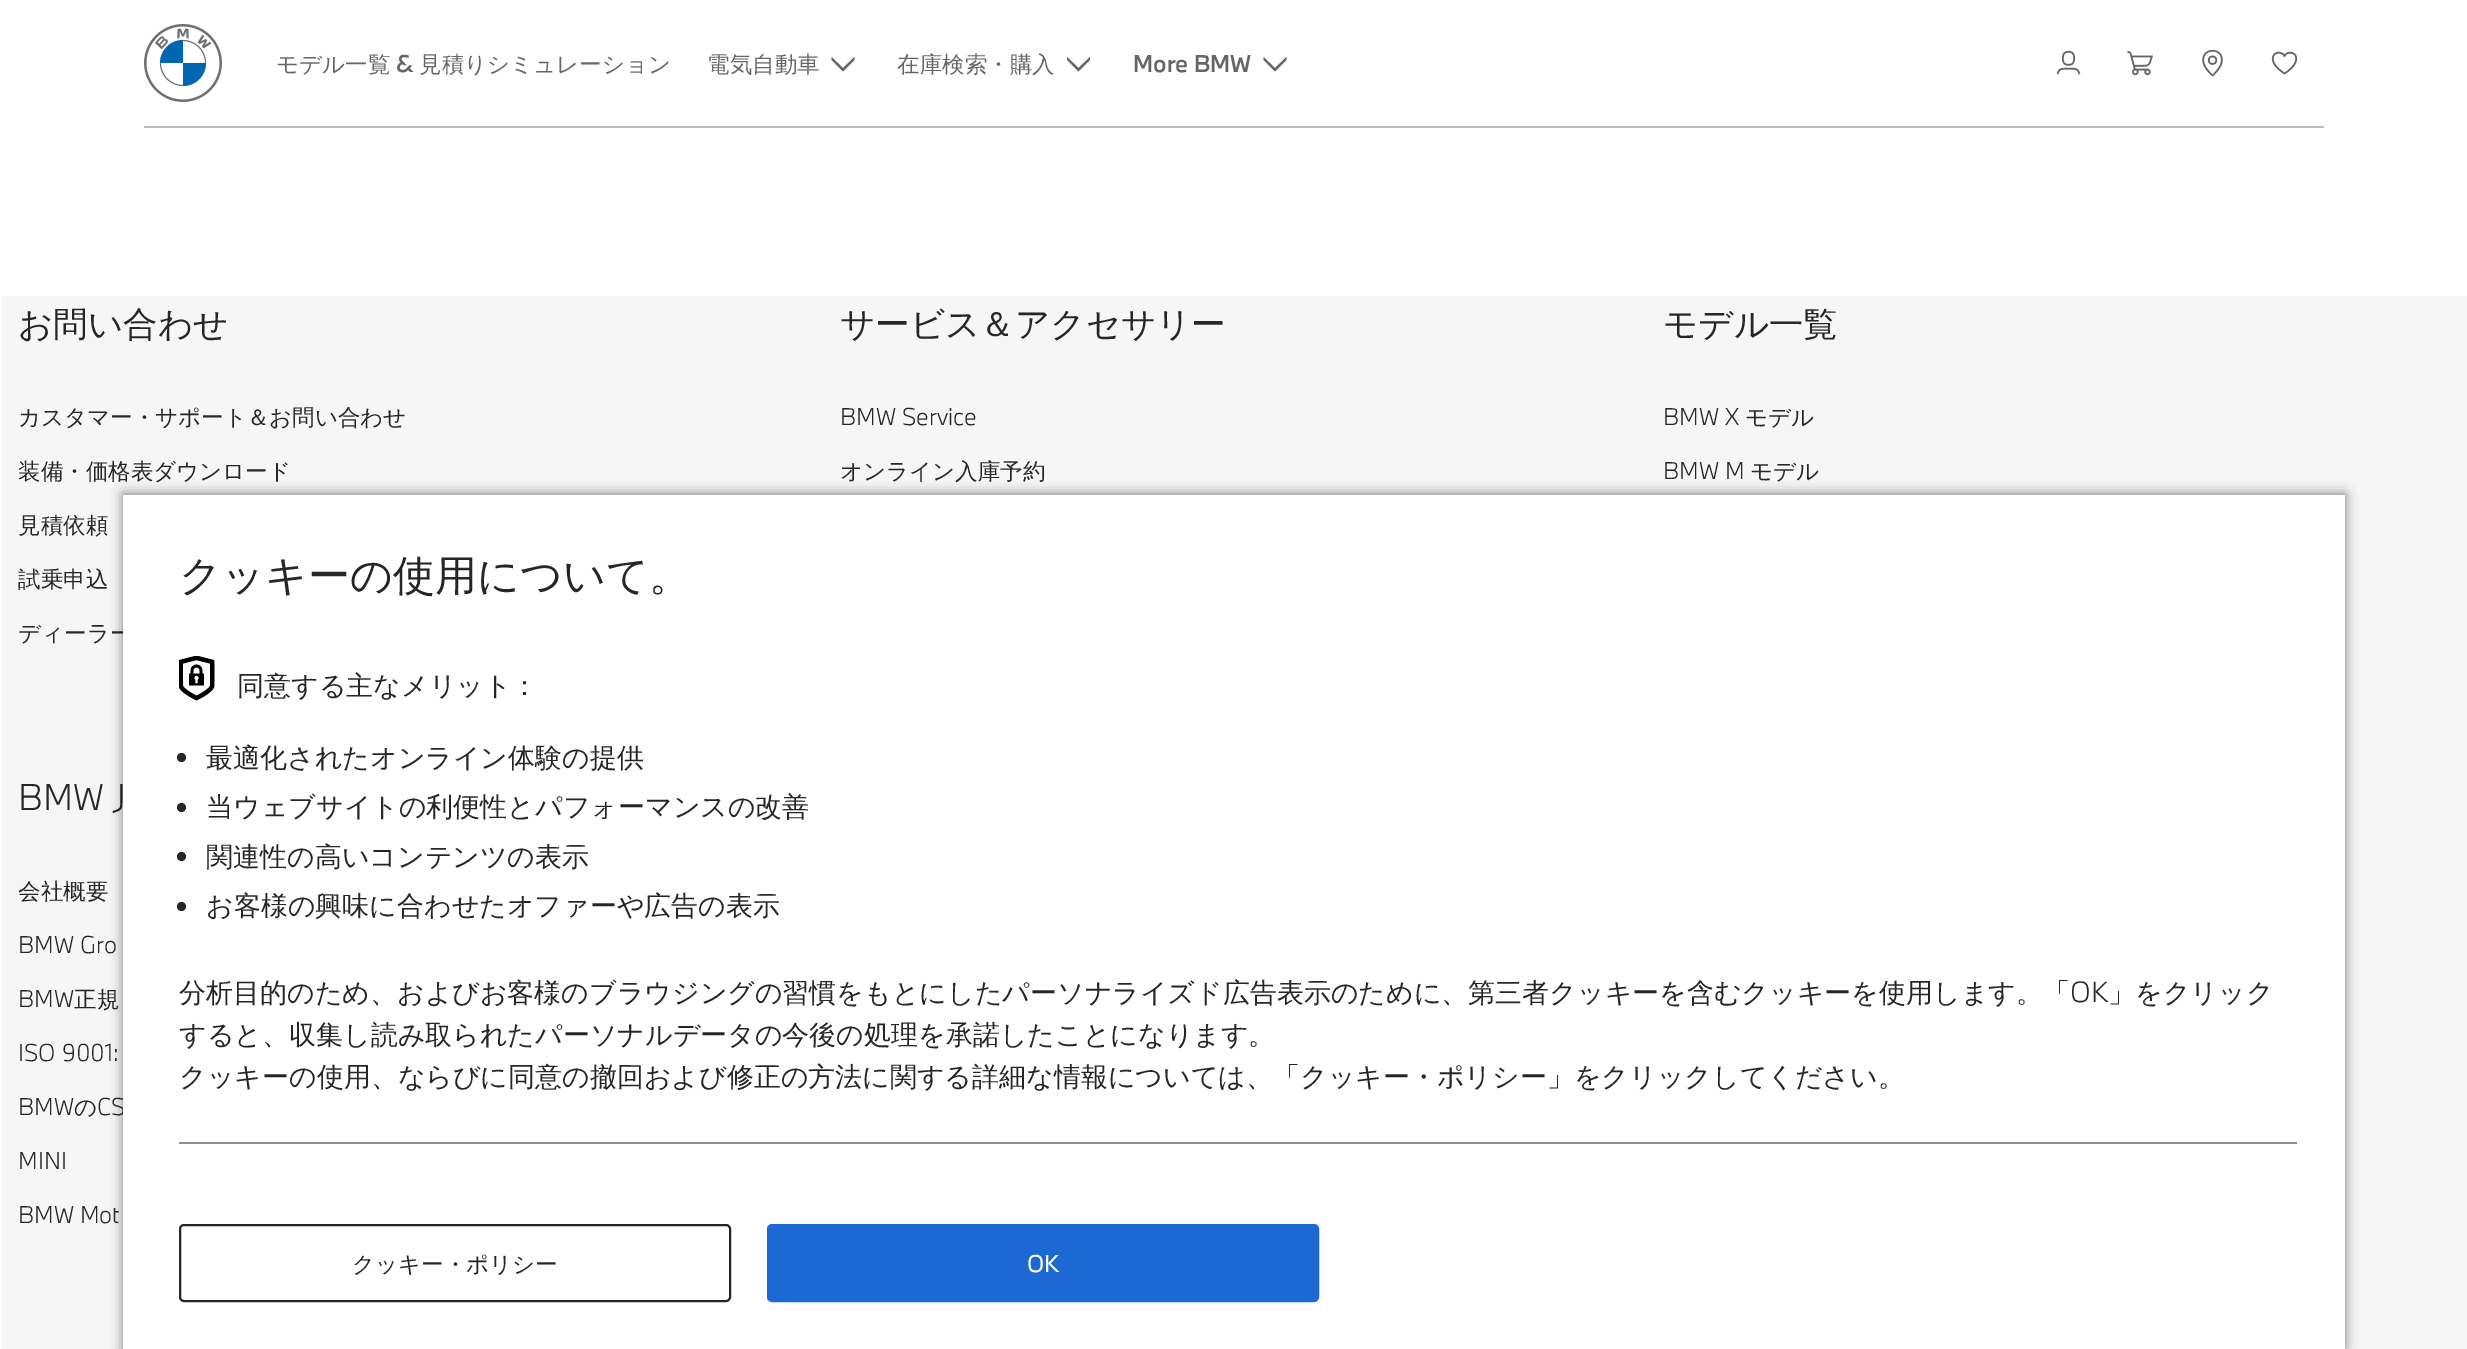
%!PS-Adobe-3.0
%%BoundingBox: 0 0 2467 1349
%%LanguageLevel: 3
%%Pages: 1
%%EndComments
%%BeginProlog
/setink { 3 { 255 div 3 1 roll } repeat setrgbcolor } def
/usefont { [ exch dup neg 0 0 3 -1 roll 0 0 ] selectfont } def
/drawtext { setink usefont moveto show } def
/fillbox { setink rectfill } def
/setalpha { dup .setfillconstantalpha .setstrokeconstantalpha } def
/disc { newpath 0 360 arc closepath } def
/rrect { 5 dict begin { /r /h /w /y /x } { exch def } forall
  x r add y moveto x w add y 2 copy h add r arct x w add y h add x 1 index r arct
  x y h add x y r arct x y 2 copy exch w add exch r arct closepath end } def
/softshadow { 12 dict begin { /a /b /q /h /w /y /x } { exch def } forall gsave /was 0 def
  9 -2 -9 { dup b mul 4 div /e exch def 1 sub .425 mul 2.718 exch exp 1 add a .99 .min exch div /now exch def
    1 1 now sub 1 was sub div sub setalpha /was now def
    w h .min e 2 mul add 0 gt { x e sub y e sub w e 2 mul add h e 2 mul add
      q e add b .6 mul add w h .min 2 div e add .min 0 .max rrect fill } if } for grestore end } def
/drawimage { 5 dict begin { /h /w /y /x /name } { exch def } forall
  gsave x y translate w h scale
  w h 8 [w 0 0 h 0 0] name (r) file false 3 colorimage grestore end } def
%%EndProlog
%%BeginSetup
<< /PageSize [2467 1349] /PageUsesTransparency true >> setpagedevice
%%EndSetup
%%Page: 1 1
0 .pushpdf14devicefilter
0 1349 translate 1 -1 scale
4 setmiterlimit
0 0 2467 1349 255 255 255 fillbox
(assets/img1.rgb) 144 24 78 78 drawimage
(モデル一覧) 276 72 /WenQuanYiZenHei-Medium 22.5 102 102 102 drawtext
(&) 396 72 /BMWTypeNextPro-Medium 22.5 102 102 102 drawtext
(見積りシミュレーション) 419 72 /WenQuanYiZenHei-Medium 22.5 102 102 102 drawtext
(電気自動車) 707 72 /WenQuanYiZenHei-Medium 22.5 102 102 102 drawtext
831.5 60 moveto 831.5 57 lineto 843 68 lineto 854.5 57 lineto 854.5 60 lineto 843 71.5 lineto closepath fill
(在庫検索・購入) 897 72 /WenQuanYiZenHei-Medium 22.5 102 102 102 drawtext
1067 60 moveto 1067 57 lineto 1078.5 68 lineto 1090 57 lineto 1090 60 lineto 1078.5 71.5 lineto closepath fill
(More BMW) 1133 72 /BMWTypeNextPro-Medium 22.5 102 102 102 drawtext
1263.5 60 moveto 1263.5 57 lineto 1275 68 lineto 1286.5 57 lineto 1286.5 60 lineto 1275 71.5 lineto closepath fill
(assets/img2.rgb) 2056 50 25 25 drawimage
(assets/img3.rgb) 2127 50 26 26 drawimage
(assets/img4.rgb) 2202 49 21 28 drawimage
(assets/img5.rgb) 2271 51 27 24 drawimage
144 126 2180 2 187 187 187 fillbox
2 296 2465 1053 246 246 246 fillbox
(お問い合わせ) 18 336 /WenQuanYiZenHei-Medium 34.5 38 38 38 drawtext
(カスタマー・サポート＆お問い合わせ) 18 425 /WenQuanYiZenHei-Medium 22.5 38 38 38 drawtext
(装備・価格表ダウンロード) 18 479 /WenQuanYiZenHei-Medium 22.5 38 38 38 drawtext
(見積依頼) 18 533 /WenQuanYiZenHei-Medium 22.5 38 38 38 drawtext
(試乗申込) 18 587 /WenQuanYiZenHei-Medium 22.5 38 38 38 drawtext
(ディーラー) 18 641 /WenQuanYiZenHei-Medium 22.5 38 38 38 drawtext
(BMW J) 18 810 /BMWTypeNextPro-Light 34.5 38 38 38 drawtext
(会社概要) 18 899 /WenQuanYiZenHei-Medium 22.5 38 38 38 drawtext
(BMW Gro) 18 953 /BMWTypeNextPro-Light 22.5 38 38 38 drawtext
(BMW) 18 1007 /BMWTypeNextPro-Light 22.5 38 38 38 drawtext
(正規) 74 1007 /WenQuanYiZenHei-Medium 22.5 38 38 38 drawtext
(ISO 9001:) 18 1061 /BMWTypeNextPro-Light 22.5 38 38 38 drawtext
(BMW) 18 1115 /BMWTypeNextPro-Light 22.5 38 38 38 drawtext
(の) 74 1115 /WenQuanYiZenHei-Medium 22.5 38 38 38 drawtext
(CS) 97 1115 /BMWTypeNextPro-Light 22.5 38 38 38 drawtext
(MINI) 18 1169 /BMWTypeNextPro-Light 22.5 38 38 38 drawtext
(BMW Mot) 18 1223 /BMWTypeNextPro-Light 22.5 38 38 38 drawtext
(サービス＆アクセサリー) 840 336 /WenQuanYiZenHei-Medium 34.5 38 38 38 drawtext
(BMW Service) 840 425 /BMWTypeNextPro-Light 22.5 38 38 38 drawtext
(オンライン入庫予約) 840 479 /WenQuanYiZenHei-Medium 22.5 38 38 38 drawtext
(モデル一覧) 1663 336 /WenQuanYiZenHei-Medium 34.5 38 38 38 drawtext
(BMW X) 1663 425 /BMWTypeNextPro-Light 22.5 38 38 38 drawtext
(モデル) 1745 425 /WenQuanYiZenHei-Medium 22.5 38 38 38 drawtext
(BMW M) 1663 479 /BMWTypeNextPro-Light 22.5 38 38 38 drawtext
(モデル) 1750 479 /WenQuanYiZenHei-Medium 22.5 38 38 38 drawtext
0 0 0 setink
123 494 2222 855 0 6 0.5 softshadow
123 495 2222 854 255 255 255 fillbox
(クッキーの使用について。) 179 590 /WenQuanYiZenHei-Medium 42 38 38 38 drawtext
(assets/img6.rgb) 179 656 36 45 drawimage
(同意する主なメリット：) 237 695 /WenQuanYiZenHei-Medium 27 38 38 38 drawtext
181.5 757.5 4.5 disc fill
(最適化されたオンライン体験の提供) 206 767 /WenQuanYiZenHei-Medium 27 38 38 38 drawtext
181.5 807.5 4.5 disc fill
(当ウェブサイトの利便性とパフォーマンスの改善) 206 816 /WenQuanYiZenHei-Medium 27 38 38 38 drawtext
181.5 856.5 4.5 disc fill
(関連性の高いコンテンツの表示) 206 866 /WenQuanYiZenHei-Medium 27 38 38 38 drawtext
181.5 906.5 4.5 disc fill
(お客様の興味に合わせたオファーや広告の表示) 206 915 /WenQuanYiZenHei-Medium 27 38 38 38 drawtext
(分析目的のため、およびお客様のブラウジングの習慣をもとにしたパーソナライズド広告表示のために、第三者クッキーを含むクッキーを使用します。「) 179 1002 /WenQuanYiZenHei-Medium 27 38 38 38 drawtext
(OK) 2070 1002 /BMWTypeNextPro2-Light 27 38 38 38 drawtext
(」をクリック) 2108 1002 /WenQuanYiZenHei-Medium 27 38 38 38 drawtext
(すると、収集し読み取られたパーソナルデータの今後の処理を承諾したことになります。) 179 1044 /WenQuanYiZenHei-Medium 27 38 38 38 drawtext
(クッキーの使用、ならびに同意の撤回および修正の方法に関する詳細な情報については、「クッキー・ポリシー」をクリックしてください。) 179 1086 /WenQuanYiZenHei-Medium 27 38 38 38 drawtext
179 1142 2118 2 142 142 142 fillbox
38 38 38 setink
2 setlinewidth
180 1225 550 76 4 rrect stroke
(クッキー・ポリシー) 352 1272 /WenQuanYiZenHei-Medium 22.5 38 38 38 drawtext
28 105 212 setink
768 1225 550 76 4 rrect gsave fill grestore
stroke
(OK) 1027 1272 /BMWTypeNextPro-Regular 22.5 255 255 255 drawtext
.poppdf14devicefilter showpage
%%EOF
